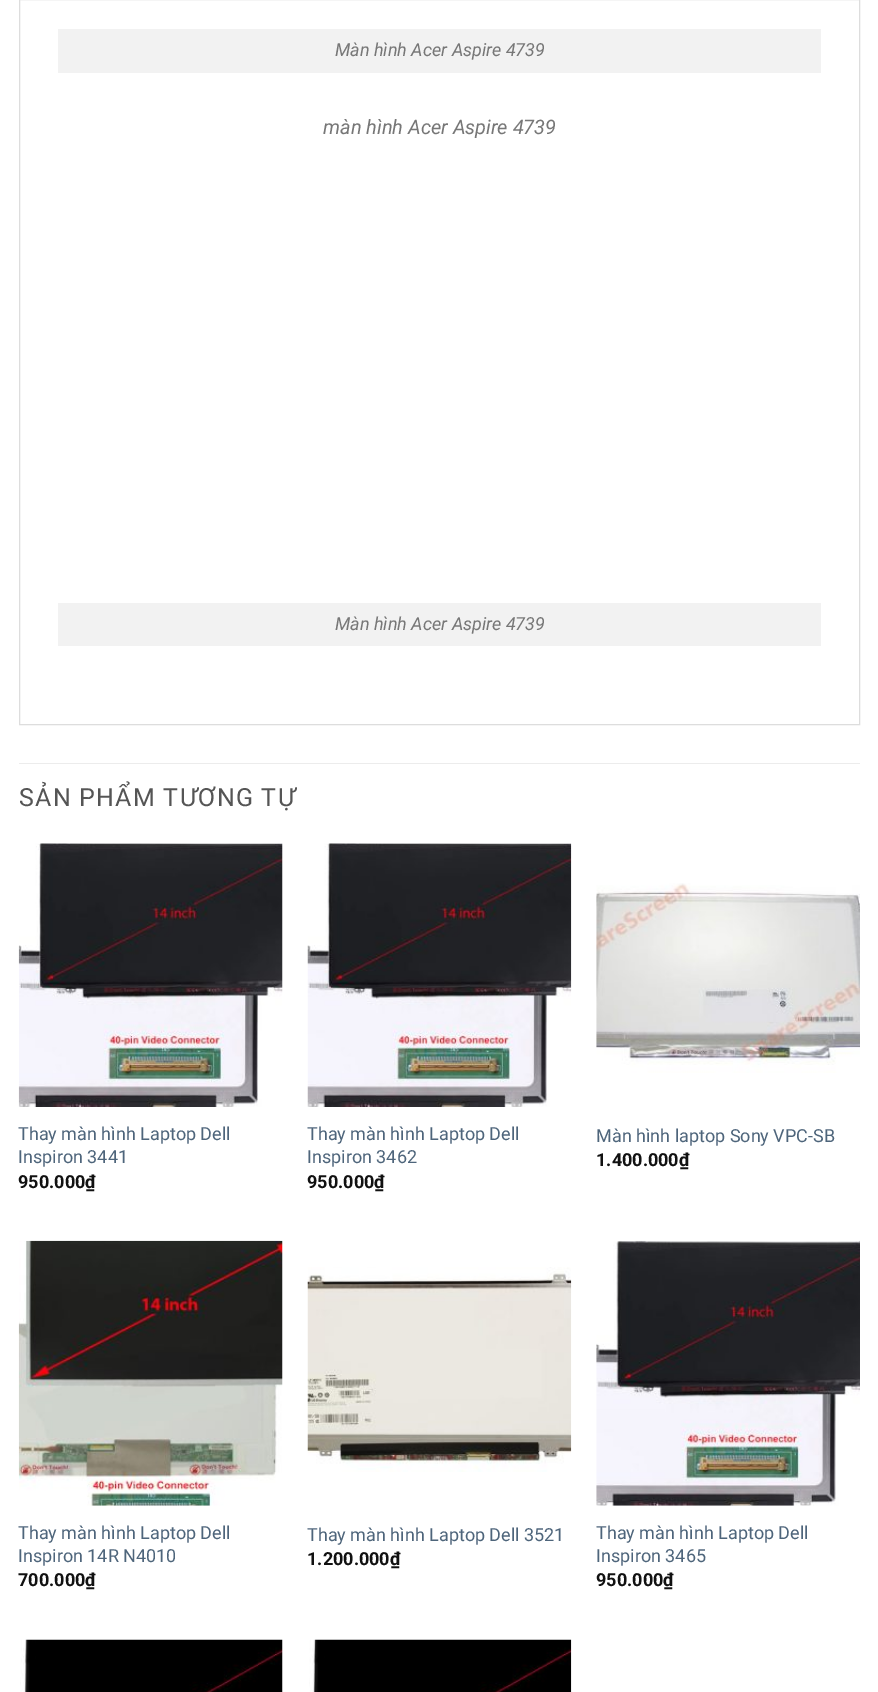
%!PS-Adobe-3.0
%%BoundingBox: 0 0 878 1692
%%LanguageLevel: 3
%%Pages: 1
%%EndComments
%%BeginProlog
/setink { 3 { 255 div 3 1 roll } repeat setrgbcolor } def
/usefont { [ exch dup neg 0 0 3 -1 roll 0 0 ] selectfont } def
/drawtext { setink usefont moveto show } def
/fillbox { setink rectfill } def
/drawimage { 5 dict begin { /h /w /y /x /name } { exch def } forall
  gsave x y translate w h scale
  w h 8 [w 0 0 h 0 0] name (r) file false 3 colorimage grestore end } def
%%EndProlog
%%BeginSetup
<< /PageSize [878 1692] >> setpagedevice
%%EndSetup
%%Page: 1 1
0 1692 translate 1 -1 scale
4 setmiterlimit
0 0 878 1692 255 255 255 fillbox
221 221 221 setink
19.5 -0.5 840 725 rectstroke
58 29 763 44 242 242 242 fillbox
(Màn hình Acer Aspire 4739) 335 56 /Roboto-Italic 18 119 119 119 drawtext
(màn hình Acer Aspire 4739) 323 134 /Roboto-Italic 20 119 119 119 drawtext
58 603 763 43 242 242 242 fillbox
(Màn hình Acer Aspire 4739) 335 630 /Roboto-Italic 18 119 119 119 drawtext
19 763 841 1 236 236 236 fillbox
/Roboto-Regular 25 usefont
85 85 85 setink
19 806 moveto 1.25 0 (SẢN PHẨM TƯƠNG TỰ) ashow
(assets/img1.rgb) 18 843 265 264 drawimage
(Thay màn hình Laptop Dell) 18 1140 /Roboto-Regular 18 78 101 123 drawtext
(Inspiron 3441) 18 1163 /Roboto-Regular 18 78 101 123 drawtext
(950.000₫) 18 1188 /Roboto-Bold 18 17 17 17 drawtext
(assets/img2.rgb) 307 843 265 264 drawimage
(Thay màn hình Laptop Dell) 307 1140 /Roboto-Regular 18 78 101 123 drawtext
(Inspiron 3462) 307 1163 /Roboto-Regular 18 78 101 123 drawtext
(950.000₫) 307 1188 /Roboto-Bold 18 17 17 17 drawtext
(assets/img3.rgb) 596 883 264 190 drawimage
(Màn hình laptop Sony VPC-SB) 596 1142 /Roboto-Regular 18 78 101 123 drawtext
(1.400.000₫) 596 1166 /Roboto-Bold 18 17 17 17 drawtext
(assets/img4.rgb) 18 1240 265 266 drawimage
(Thay màn hình Laptop Dell) 18 1539 /Roboto-Regular 18 78 101 123 drawtext
(Inspiron 14R N4010) 18 1562 /Roboto-Regular 18 78 101 123 drawtext
(700.000₫) 18 1586 /Roboto-Bold 18 17 17 17 drawtext
(assets/img5.rgb) 307 1267 265 205 drawimage
(Thay màn hình Laptop Dell 3521) 307 1541 /Roboto-Regular 18 78 101 123 drawtext
(1.200.000₫) 307 1565 /Roboto-Bold 18 17 17 17 drawtext
(assets/img6.rgb) 596 1240 264 266 drawimage
(Thay màn hình Laptop Dell) 596 1539 /Roboto-Regular 18 78 101 123 drawtext
(Inspiron 3465) 596 1562 /Roboto-Regular 18 78 101 123 drawtext
(950.000₫) 596 1586 /Roboto-Bold 18 17 17 17 drawtext
(assets/img7.rgb) 20 1639 263 53 drawimage
(assets/img8.rgb) 309 1639 263 53 drawimage
showpage
%%EOF
